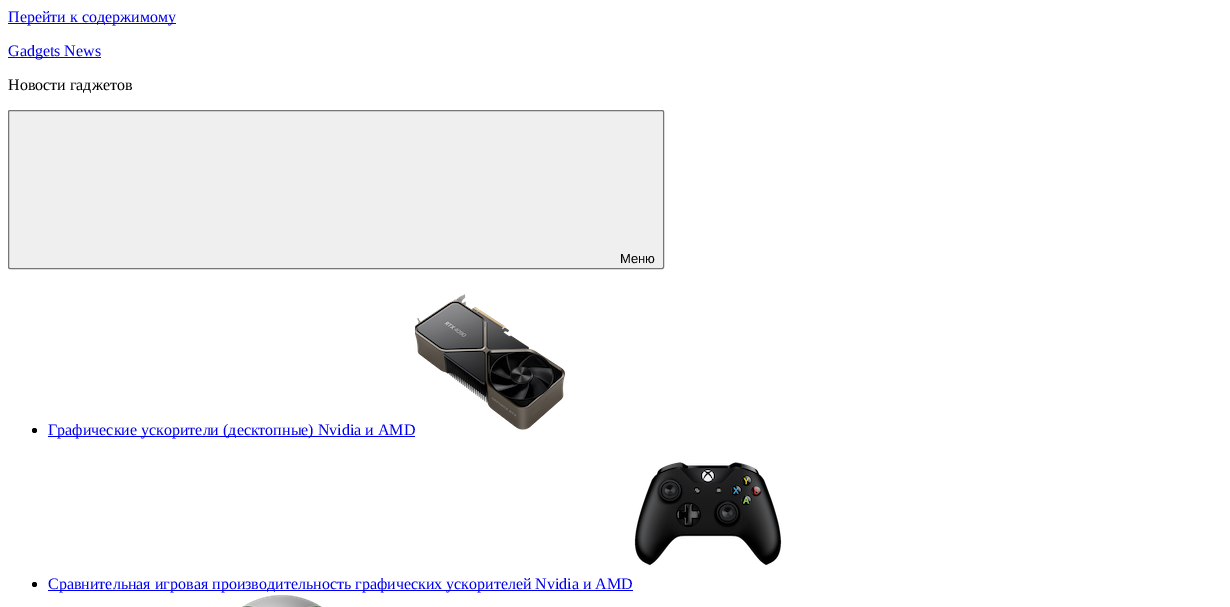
%!PS-Adobe-3.0
%%BoundingBox: 0 0 1230 607
%%LanguageLevel: 3
%%Pages: 1
%%EndComments
%%BeginProlog
/setink { 3 { 255 div 3 1 roll } repeat setrgbcolor } def
/usefont { [ exch dup neg 0 0 3 -1 roll 0 0 ] selectfont } def
/drawtext { setink usefont moveto show } def
/fillbox { setink rectfill } def
/disc { newpath 0 360 arc closepath } def
/rrect { 5 dict begin { /r /h /w /y /x } { exch def } forall
  x r add y moveto x w add y 2 copy h add r arct x w add y h add x 1 index r arct
  x y h add x y r arct x y 2 copy exch w add exch r arct closepath end } def
/drawimage { 5 dict begin { /h /w /y /x /name } { exch def } forall
  gsave x y translate w h scale
  w h 8 [w 0 0 h 0 0] name (r) file false 3 colorimage grestore end } def
%%EndProlog
%%BeginSetup
<< /PageSize [1230 607] >> setpagedevice
%%EndSetup
%%Page: 1 1
0 607 translate 1 -1 scale
4 setmiterlimit
0 0 1230 607 255 255 255 fillbox
8 23 168 1 0 0 238 fillbox
(Перейти к содержимому) 8 22 /LiberationSerif-Regular 16 0 0 238 drawtext
8 57 93 1 0 0 238 fillbox
(Gadgets News) 8 56 /LiberationSerif-Regular 16 0 0 238 drawtext
(Новости гаджетов) 8 90 /LiberationSerif-Regular 16 0 0 0 drawtext
239 239 239 setink
8.5 110.5 655 158 1.5 rrect gsave fill grestore
118 118 118 setink
stroke
(Меню) 620 263 /LiberationSans-Regular 13 0 0 0 drawtext
34.5 430.5 2.5 disc fill
48 436 367 1 0 0 238 fillbox
(Графические ускорители \(десктопные\) Nvidia и AMD) 48 435 /LiberationSerif-Regular 16 0 0 238 drawtext
(assets/img1.rgb) 415 294 150 136 drawimage
(assets/img2.rgb) 634 462 148 104 drawimage
0 0 0 setink
34.5 584.5 2.5 disc fill
48 590 585 1 0 0 238 fillbox
(Сравнительная игровая производительность графических ускорителей Nvidia и AMD) 48 589 /LiberationSerif-Regular 16 0 0 238 drawtext
(assets/img3.rgb) 242 595 80 12 drawimage
showpage
%%EOF
